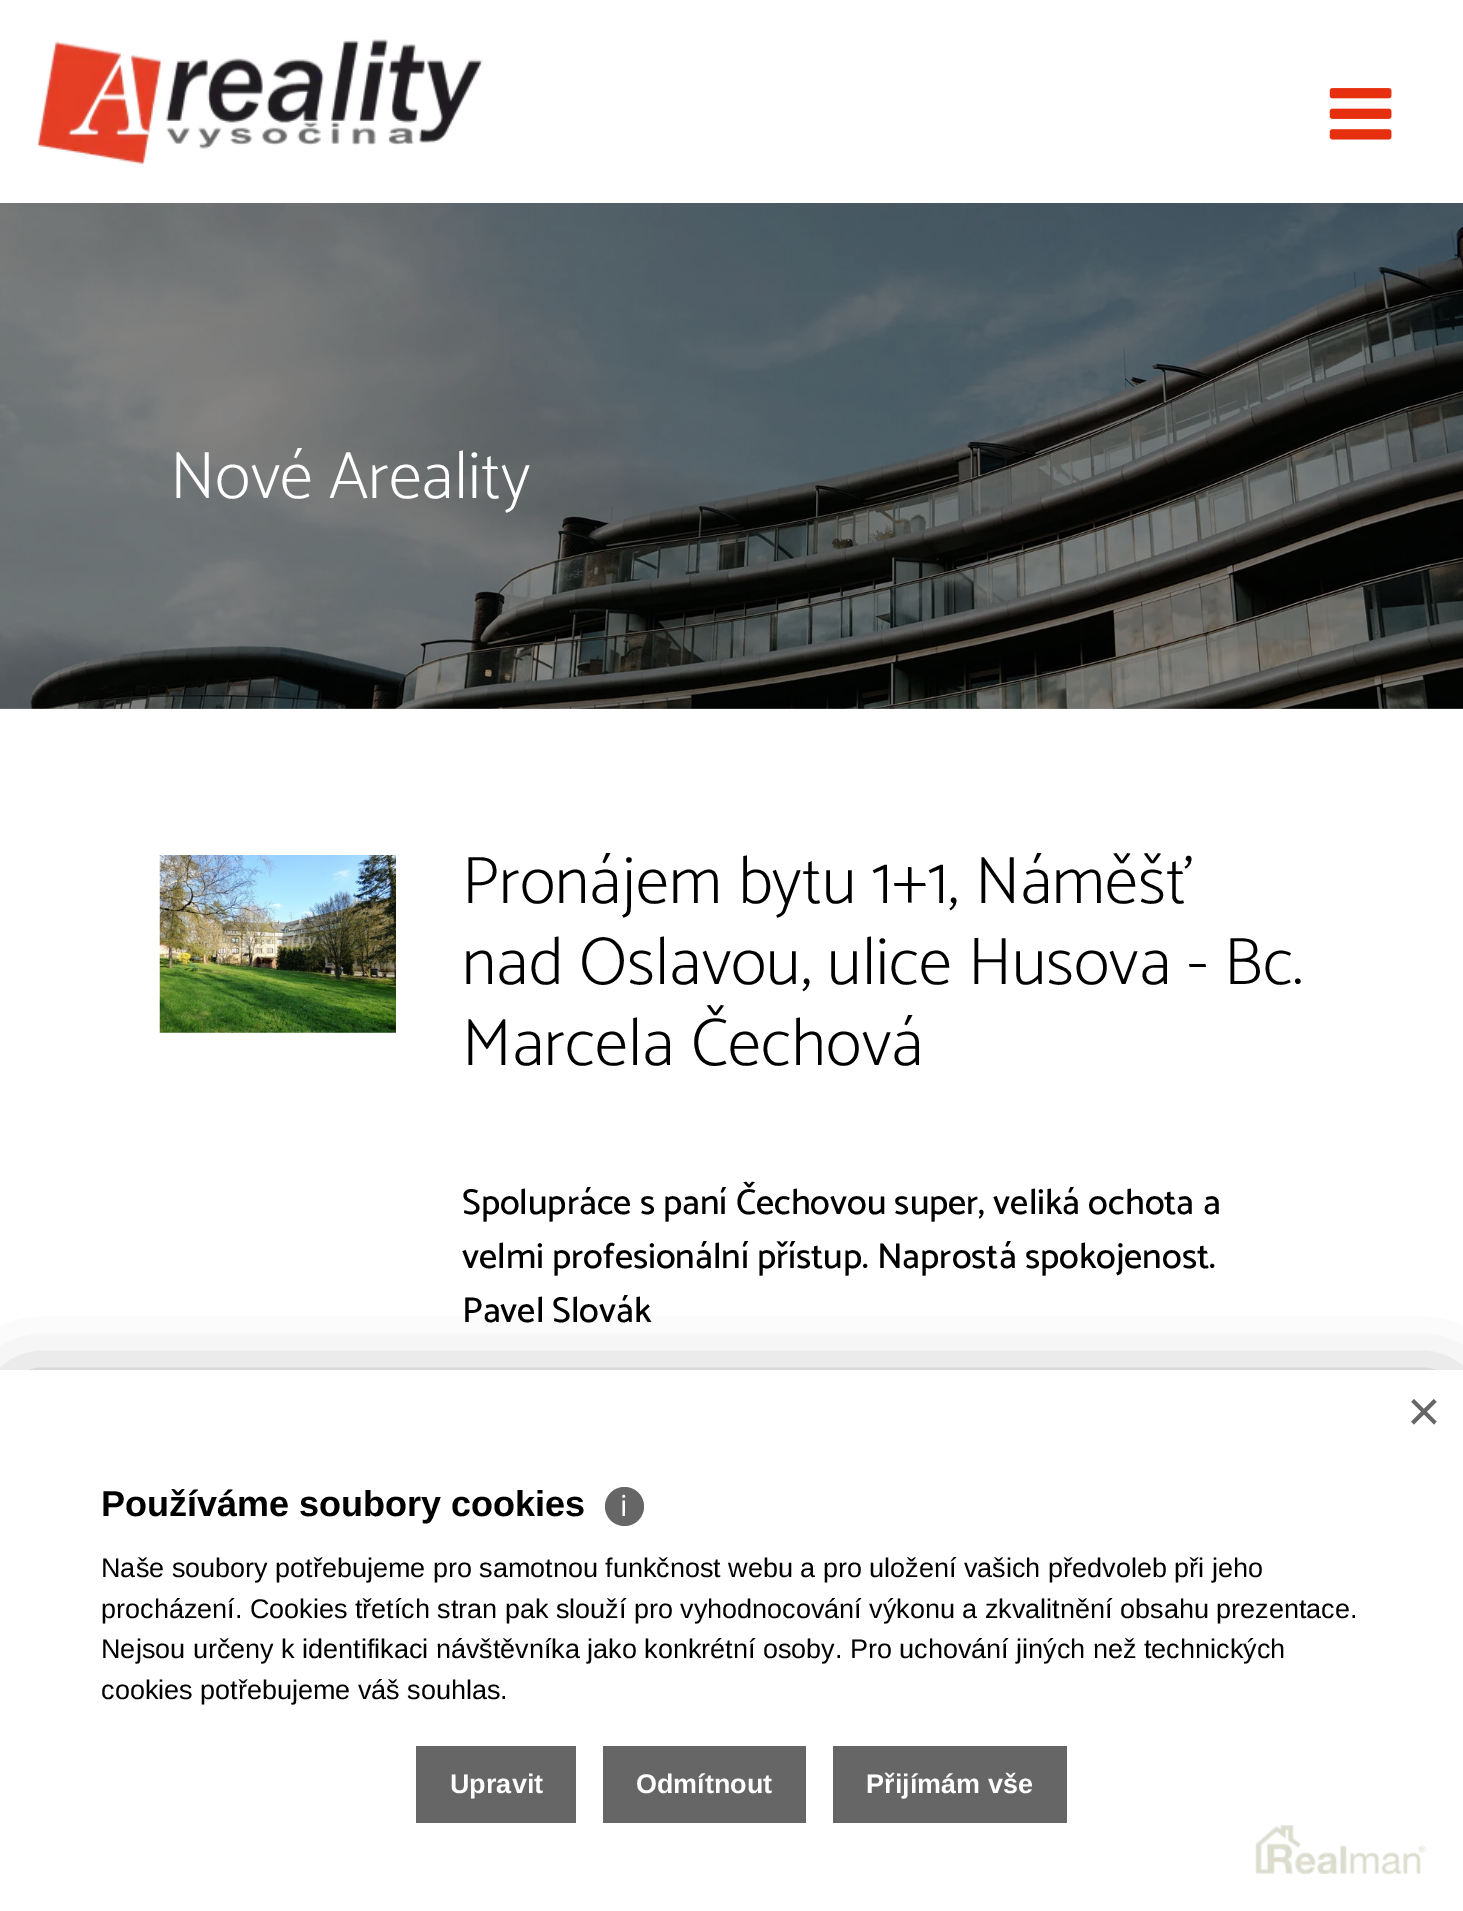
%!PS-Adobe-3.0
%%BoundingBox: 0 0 1463 1911
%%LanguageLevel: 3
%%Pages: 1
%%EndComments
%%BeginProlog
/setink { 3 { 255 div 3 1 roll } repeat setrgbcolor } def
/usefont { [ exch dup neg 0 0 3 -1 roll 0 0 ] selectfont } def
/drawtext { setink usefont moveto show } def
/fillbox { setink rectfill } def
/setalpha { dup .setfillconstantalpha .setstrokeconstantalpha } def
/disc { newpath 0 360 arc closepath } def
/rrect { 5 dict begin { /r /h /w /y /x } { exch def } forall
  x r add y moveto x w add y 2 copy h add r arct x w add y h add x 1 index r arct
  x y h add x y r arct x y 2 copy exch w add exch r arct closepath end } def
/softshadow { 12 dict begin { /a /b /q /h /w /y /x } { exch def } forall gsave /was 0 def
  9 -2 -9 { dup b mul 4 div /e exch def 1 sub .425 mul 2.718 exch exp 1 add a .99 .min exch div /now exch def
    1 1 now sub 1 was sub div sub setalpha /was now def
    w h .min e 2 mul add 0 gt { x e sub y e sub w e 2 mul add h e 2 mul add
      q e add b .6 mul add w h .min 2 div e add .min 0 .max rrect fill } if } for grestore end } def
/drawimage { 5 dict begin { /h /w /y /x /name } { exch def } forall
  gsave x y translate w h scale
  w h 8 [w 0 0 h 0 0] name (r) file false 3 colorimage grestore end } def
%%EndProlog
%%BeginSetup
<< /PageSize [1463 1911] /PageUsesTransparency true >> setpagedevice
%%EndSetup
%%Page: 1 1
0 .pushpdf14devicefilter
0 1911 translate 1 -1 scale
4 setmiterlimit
0 0 1463 1911 255 255 255 fillbox
(assets/img3.rgb) 0 202 1463 507 drawimage
0.98 setalpha
0 202 1463 1 255 255 255 fillbox
1 setalpha
(assets/img1.rgb) 38 39 445 126 drawimage
(assets/img2.rgb) 1329 88 63 52 drawimage
(Nové Areality) 170 498 /Catamaran-ExtraLight 67.5 255 255 255 drawtext
(assets/img4.rgb) 159 855 237 178 drawimage
(Pronájem bytu 1+1, Náměšť) 462 903 /Catamaran-ExtraLight 67.5 0 0 0 drawtext
(nad Oslavou, ulice Husova - Bc.) 462 984 /Catamaran-ExtraLight 67.5 0 0 0 drawtext
(Marcela Čechová) 462 1065 /Catamaran-ExtraLight 67.5 0 0 0 drawtext
(Spolupráce s paní Čechovou super, veliká ochota a) 462 1214 /Catamaran-Medium 36 0 0 0 drawtext
(velmi profesionální přístup. Naprostá spokojenost.) 462 1268 /Catamaran-Medium 36 0 0 0 drawtext
(Pavel Slovák) 462 1322 /Catamaran-Medium 36 0 0 0 drawtext
23 1393 1419 497 0 34 0.5 softshadow
0 1370 1463 541 255 255 255 fillbox
(assets/img5.rgb) 1255 1825 172 49 drawimage
(×) 1407 1431 /LiberationSans-Regular 58 102 102 102 drawtext
(Používáme soubory cookies) 101 1516 /LiberationSans-Bold 36 0 0 0 drawtext
102 102 102 setink
624.5 1506.5 19.5 disc fill
(ℹ) 620 1516 /NotoSans-Regular 29 255 255 255 drawtext
(Naše soubory potřebujeme pro samotnou funkčnost webu a pro uložení vašich předvoleb při jeho) 101 1577 /LiberationSans-Regular 27 0 0 0 drawtext
(procházení. Cookies třetích stran pak slouží pro vyhodnocování výkonu a zkvalitnění obsahu prezentace.) 101 1618 /LiberationSans-Regular 27 0 0 0 drawtext
(Nejsou určeny k identifikaci návštěvníka jako konkrétní osoby. Pro uchování jiných než technických) 101 1658 /LiberationSans-Regular 27 0 0 0 drawtext
(cookies potřebujeme váš souhlas.) 101 1699 /LiberationSans-Regular 27 0 0 0 drawtext
416 1746 160 77 102 102 102 fillbox
(Upravit) 450 1793 /LiberationSans-Bold 27 255 255 255 drawtext
603 1746 203 77 102 102 102 fillbox
(Odmítnout) 636 1793 /LiberationSans-Bold 27 255 255 255 drawtext
833 1746 234 77 102 102 102 fillbox
(Přijímám vše) 866 1793 /LiberationSans-Bold 27 255 255 255 drawtext
.poppdf14devicefilter showpage
%%EOF
